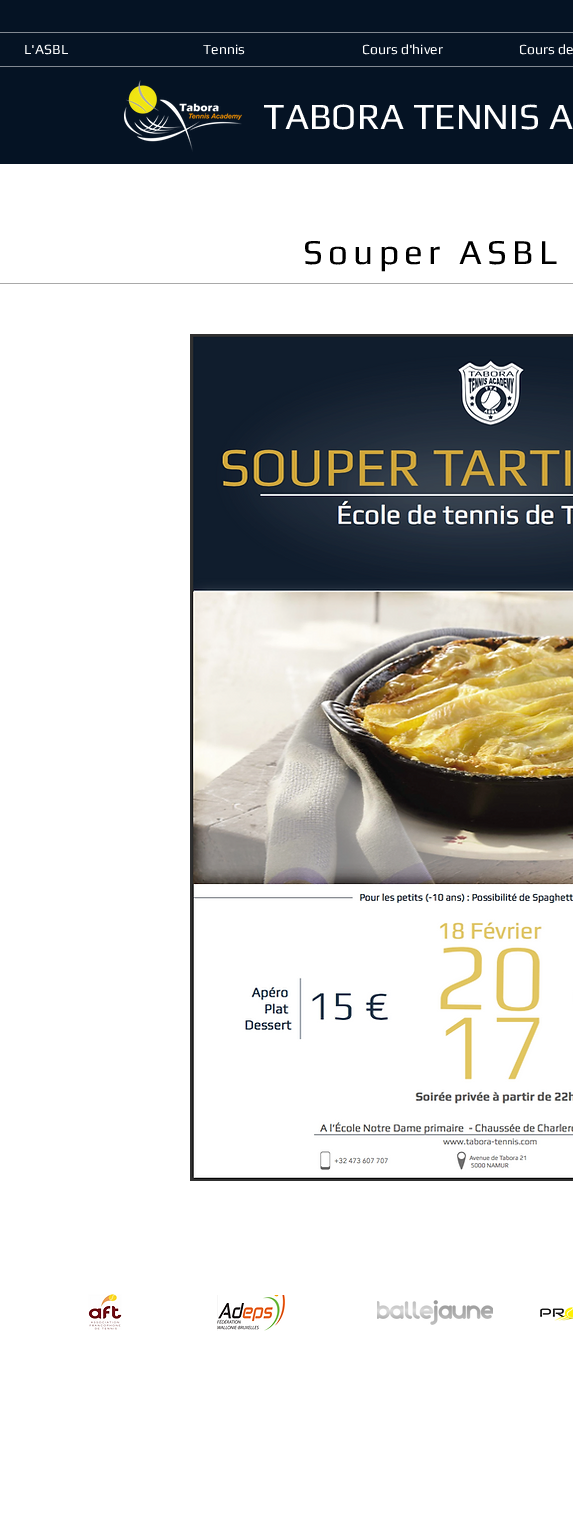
%!PS-Adobe-3.0
%%BoundingBox: 0 0 573 1528
%%LanguageLevel: 3
%%Pages: 1
%%EndComments
%%BeginProlog
/setink { 3 { 255 div 3 1 roll } repeat setrgbcolor } def
/usefont { [ exch dup neg 0 0 3 -1 roll 0 0 ] selectfont } def
/drawtext { setink usefont moveto show } def
/fillbox { setink rectfill } def
/drawimage { 5 dict begin { /h /w /y /x /name } { exch def } forall
  gsave x y translate w h scale
  w h 8 [w 0 0 h 0 0] name (r) file false 3 colorimage grestore end } def
%%EndProlog
%%BeginSetup
<< /PageSize [573 1528] >> setpagedevice
%%EndSetup
%%Page: 1 1
0 1528 translate 1 -1 scale
4 setmiterlimit
0 0 573 1528 255 255 255 fillbox
0 0 573 164 5 19 36 fillbox
0 32 573 1 130 137 146 fillbox
0 66 573 1 130 137 146 fillbox
(L'ASBL) 24 54 /Play-Regular 14 255 255 255 drawtext
(Tennis) 203 54 /Play-Regular 14 255 255 255 drawtext
(Cours d'hiver) 362 54 /Play-Regular 14 255 255 255 drawtext
(Cours de) 519 54 /Play-Regular 14 255 255 255 drawtext
(assets/img1.rgb) 124 80 118 72 drawimage
(TABORA TENNIS A) 263 129 /Play-Regular 37 255 255 255 drawtext
/Play-Regular 35 usefont
0 0 0 setink
303 264 moveto 5.25 0 (Souper ASBL) ashow
0 283 573 1 169 169 169 fillbox
(assets/img2.rgb) 190 334 383 847 drawimage
(assets/img3.rgb) 88 1294 34 36 drawimage
(assets/img4.rgb) 217 1295 68 36 drawimage
(assets/img5.rgb) 377 1300 116 25 drawimage
(assets/img6.rgb) 540 1307 33 14 drawimage
showpage
%%EOF
